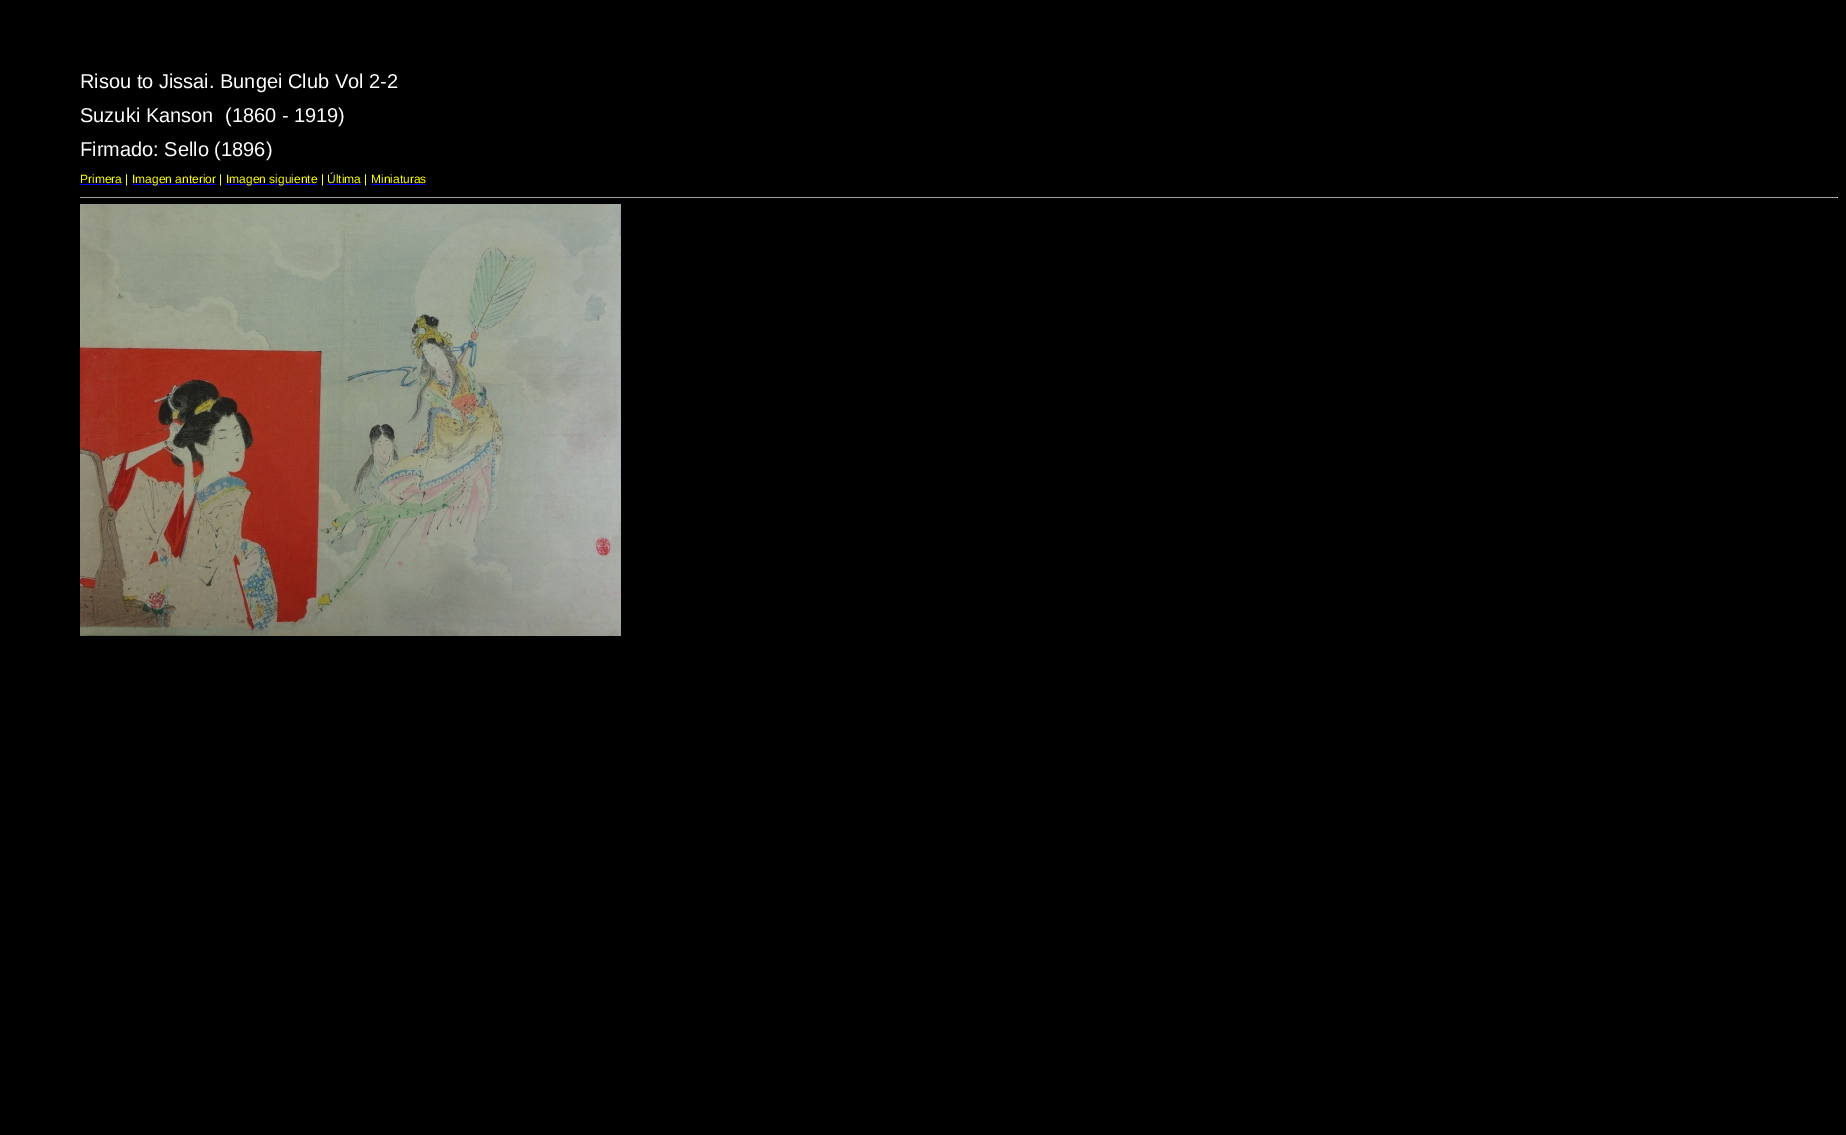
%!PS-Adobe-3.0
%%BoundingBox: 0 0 1846 1135
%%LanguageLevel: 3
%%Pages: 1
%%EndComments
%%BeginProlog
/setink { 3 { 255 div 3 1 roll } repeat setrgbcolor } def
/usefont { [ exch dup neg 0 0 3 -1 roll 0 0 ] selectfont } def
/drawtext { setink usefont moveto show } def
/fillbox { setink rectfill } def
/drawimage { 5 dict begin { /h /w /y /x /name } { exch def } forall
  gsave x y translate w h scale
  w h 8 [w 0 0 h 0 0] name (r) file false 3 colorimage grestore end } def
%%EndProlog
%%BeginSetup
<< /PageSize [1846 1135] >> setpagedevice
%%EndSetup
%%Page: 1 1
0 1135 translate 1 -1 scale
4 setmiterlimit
0 0 1846 1135 0 0 0 fillbox
(Risou to Jissai. Bungei Club Vol 2-2) 80 88 /LiberationSans-Regular 20 255 255 255 drawtext
(Suzuki Kanson) 80 122 /LiberationSans-Regular 20 255 255 255 drawtext
(\(1860 - 1919\)) 225 122 /LiberationSans-Regular 20 255 255 255 drawtext
(Firmado: Sello \(1896\)) 80 156 /LiberationSans-Regular 20 255 255 255 drawtext
80 184 42 1 0 0 238 fillbox
(Primera |) 80 183 /LiberationSans-Regular 12 255 255 0 drawtext
132 184 84 1 0 0 238 fillbox
(Imagen anterior |) 132 183 /LiberationSans-Regular 12 255 255 0 drawtext
226 184 91 1 0 0 238 fillbox
(Imagen siguiente | Última | Miniaturas) 226 183 /LiberationSans-Regular 12 255 255 0 drawtext
327 184 34 1 0 0 238 fillbox
371 184 55 1 0 0 238 fillbox
80 197 1758 1 159 159 159 fillbox
1837 197 1 1 238 238 238 fillbox
(assets/img1.rgb) 80 204 541 432 drawimage
showpage
%%EOF
